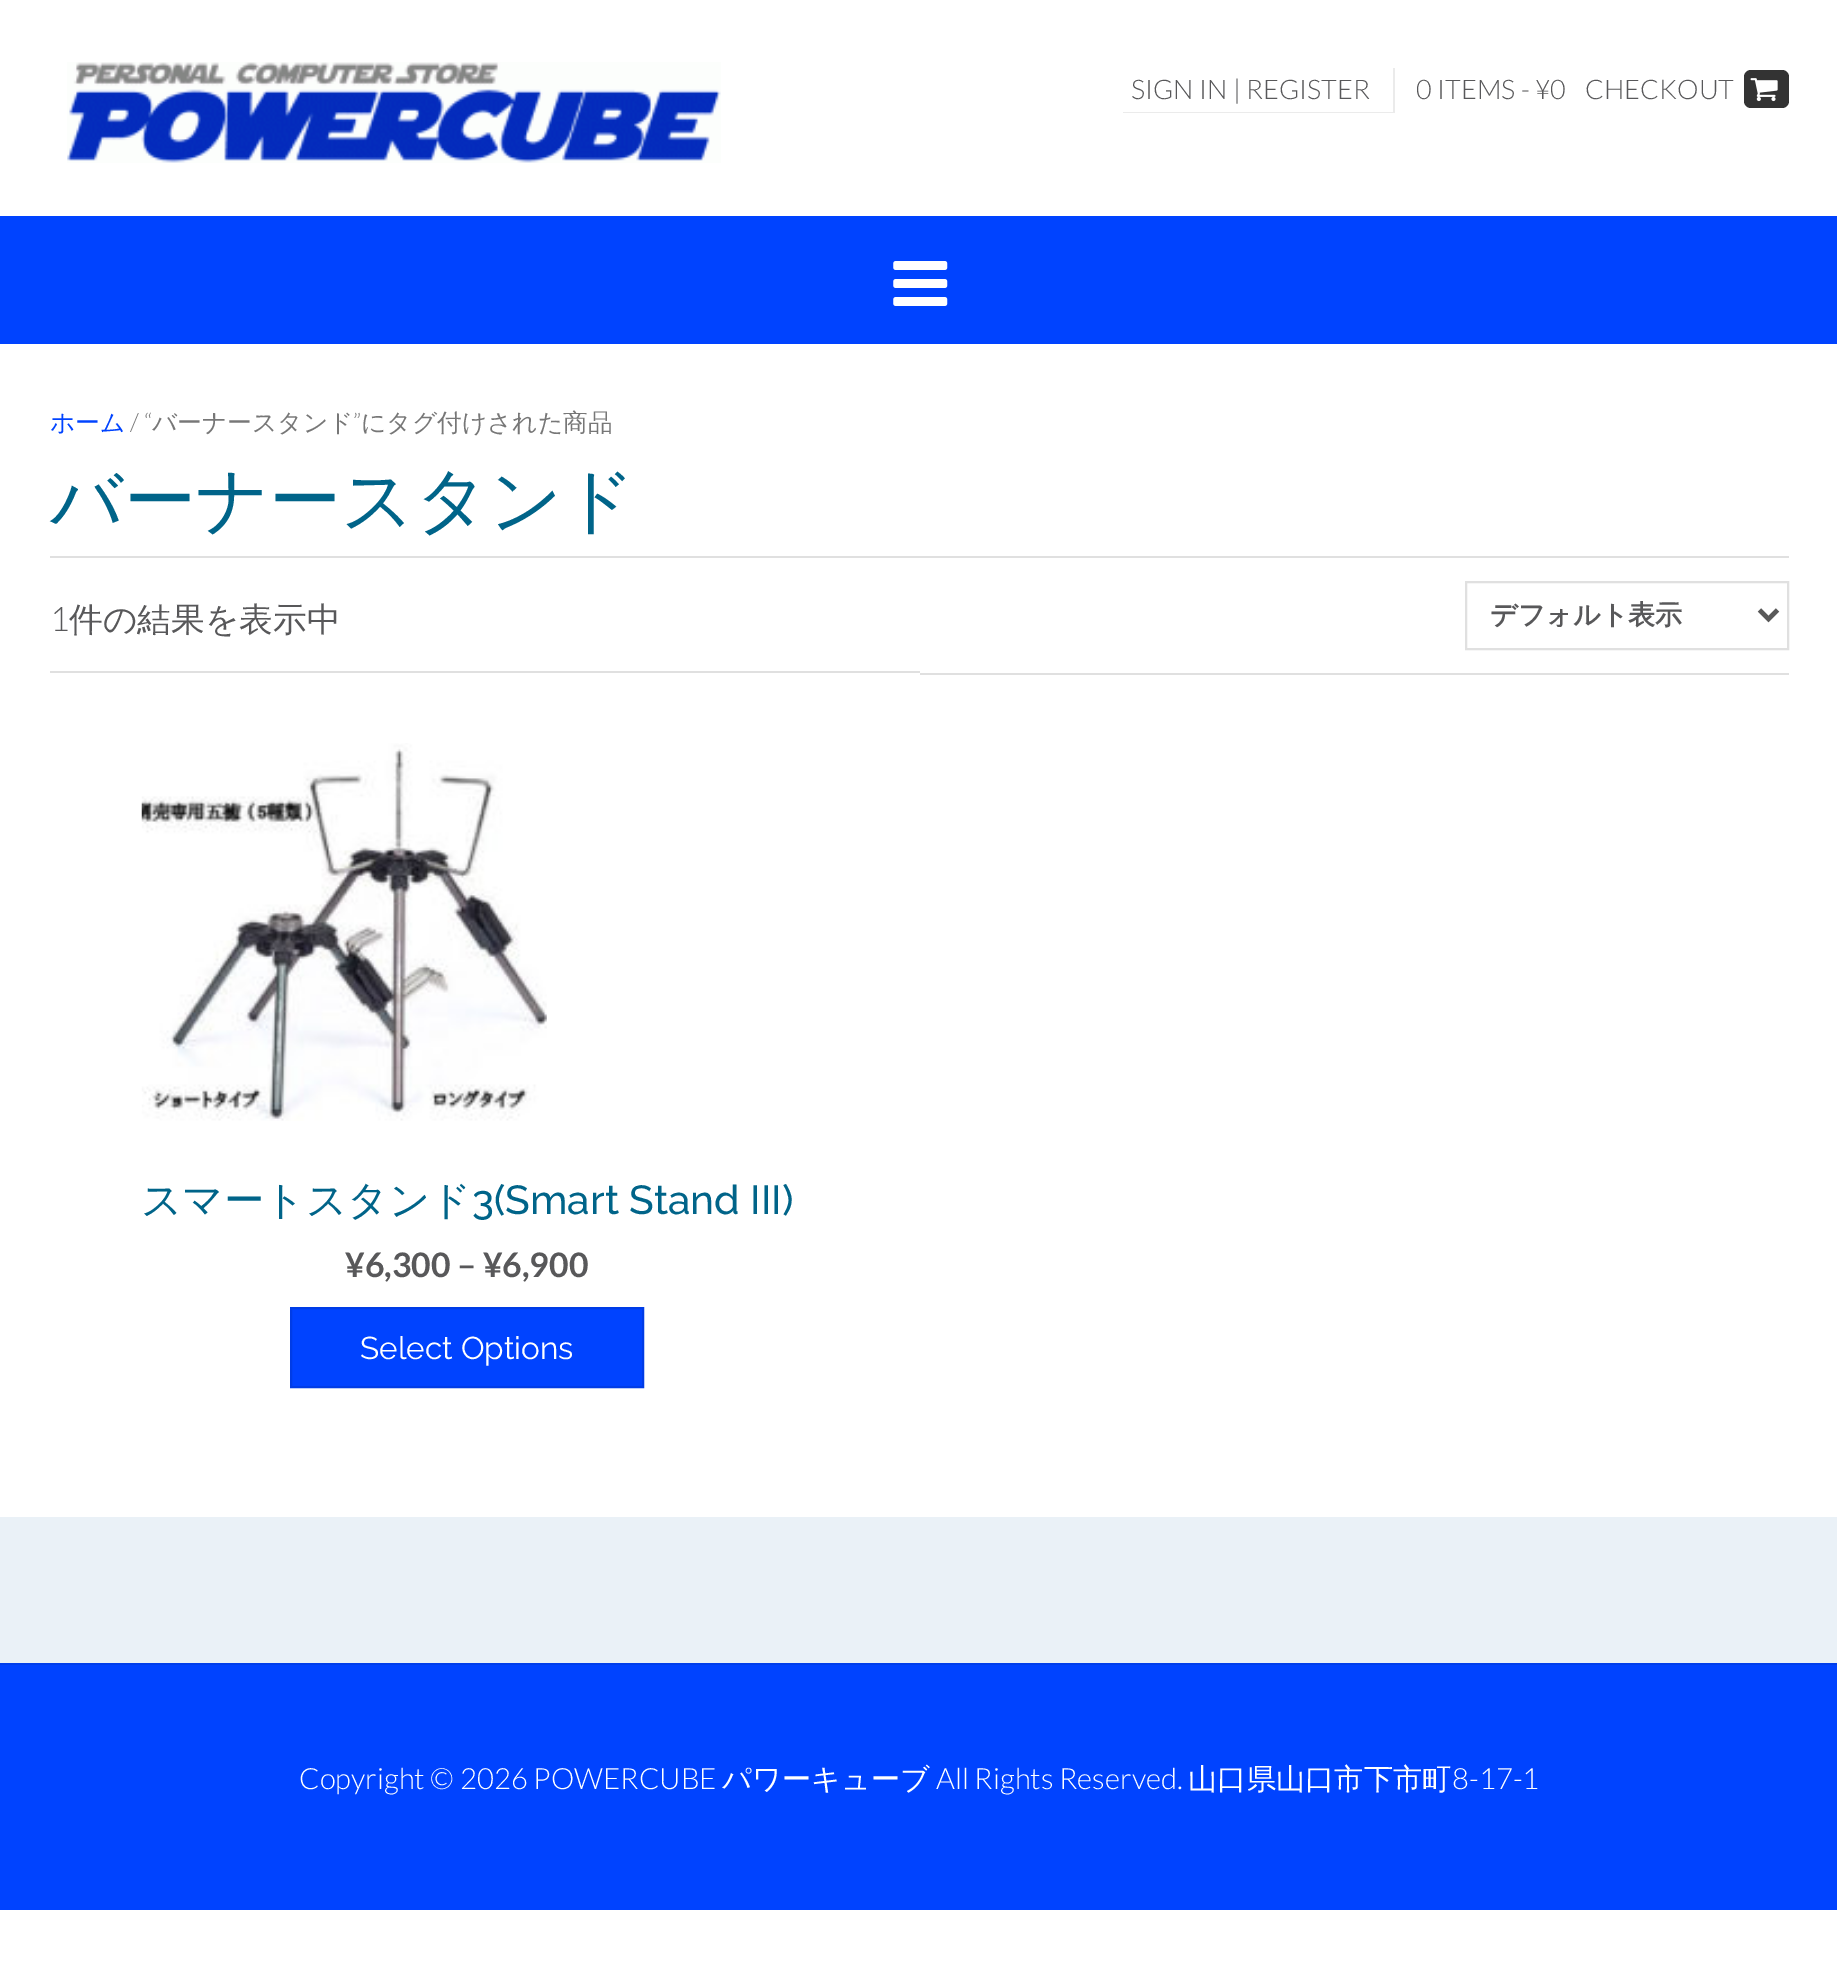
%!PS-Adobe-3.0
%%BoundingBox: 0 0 1837 1987
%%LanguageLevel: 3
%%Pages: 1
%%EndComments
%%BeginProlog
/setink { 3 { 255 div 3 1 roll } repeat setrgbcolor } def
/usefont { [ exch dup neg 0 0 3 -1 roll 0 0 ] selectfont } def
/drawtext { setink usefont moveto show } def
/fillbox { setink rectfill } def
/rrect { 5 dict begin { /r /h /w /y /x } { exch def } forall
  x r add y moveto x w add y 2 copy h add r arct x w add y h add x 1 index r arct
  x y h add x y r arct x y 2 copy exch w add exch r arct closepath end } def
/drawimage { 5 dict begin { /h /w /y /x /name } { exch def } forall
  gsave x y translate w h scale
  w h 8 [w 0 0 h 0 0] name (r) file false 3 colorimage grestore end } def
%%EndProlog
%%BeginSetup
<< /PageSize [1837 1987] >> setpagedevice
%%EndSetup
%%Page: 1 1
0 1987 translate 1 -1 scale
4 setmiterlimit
0 0 1837 1987 255 255 255 fillbox
(assets/img1.rgb) 67 62 654 101 drawimage
235 235 235 setink
1123 112 moveto 1123 113 lineto 1395 113 lineto 1395 68 lineto 1393 68 lineto 1393 112 lineto closepath fill
(SIGN IN | REGISTER) 1131 99 /Lato-Light 27 88 88 90 drawtext
(0 ITEMS - ¥0) 1416 99 /Lato-Light 27 88 88 90 drawtext
(CHECKOUT) 1585 99 /Lato-Light 27 88 88 90 drawtext
51 51 51 setink
1744 70 45 38 7 rrect fill
(assets/img2.rgb) 1750 78 28 24 drawimage
0 216 1837 128 0 67 255 fillbox
(assets/img3.rgb) 893 261 55 45 drawimage
(ホーム) 50 431 /WenQuanYiZenHei-Medium 24.75 0 67 255 drawtext
(/ “) 130 431 /Lato-Light 24.75 119 119 119 drawtext
(バーナースタンド) 152 431 /WenQuanYiZenHei-Medium 24.75 119 119 119 drawtext
(”) 353 431 /Lato-Light 24.75 119 119 119 drawtext
(にタグ付けされた商品) 361 431 /WenQuanYiZenHei-Medium 24.75 119 119 119 drawtext
(バーナースタンド) 50 525 /WenQuanYiZenHei-Medium 72 0 100 137 drawtext
50 556 870 2 224 224 224 fillbox
50 671 870 2 224 224 224 fillbox
(1) 50 631 /Lato-Light 33.75 88 88 90 drawtext
(件の結果を表示中) 69 631 /WenQuanYiZenHei-Medium 33.75 88 88 90 drawtext
224 224 224 setink
920 556 moveto 920 673 lineto 920 558 lineto 1789 558 lineto 1789 673 lineto 1789 556 lineto closepath fill
920 673 869 2 224 224 224 fillbox
2 setlinewidth
1466 582 322 67 rectstroke
89 89 89 setink
4.5 setlinewidth
1759.5 610 moveto 1768.5 619 lineto 1777.5 610 lineto stroke
(デフォルト表示) 1490 624 /WenQuanYiZenHei-Bold 27 88 88 90 drawtext
(assets/img4.rgb) 141 743 406 378 drawimage
(スマートスタンド) 141 1214 /WenQuanYiZenHei-Medium 40.5 0 100 137 drawtext
(3\(Smart Stand III\)) 472 1214 /Raleway-Medium 40.5 0 100 137 drawtext
(¥6,300 – ¥6,900) 345 1277 /Lato-Bold 33.75 88 88 90 drawtext
0 67 255 setink
291 1308 moveto 643 1308 lineto 643 1387 lineto 291 1387 lineto closepath gsave fill grestore
0 60 230 setink
2 setlinewidth
stroke
(Select Options) 360 1359 /Raleway-Regular 31.5 255 255 255 drawtext
0 1517 1837 146 234 241 247 fillbox
0 1665 1837 245 0 67 255 fillbox
0 1663 1837 2 0 62 235 fillbox
(Copyright © 2026 POWERCUBE) 299 1789 /Lato-Light 29.25 255 255 255 drawtext
(パワーキューブ) 722 1789 /WenQuanYiZenHei-Medium 29.25 255 255 255 drawtext
(All Rights Reserved.) 936 1789 /Lato-Light 29.25 255 255 255 drawtext
(山口県山口市下市町) 1188 1789 /WenQuanYiZenHei-Medium 29.25 255 255 255 drawtext
(8-17-1) 1452 1789 /Lato-Light 29.25 255 255 255 drawtext
showpage
%%EOF
